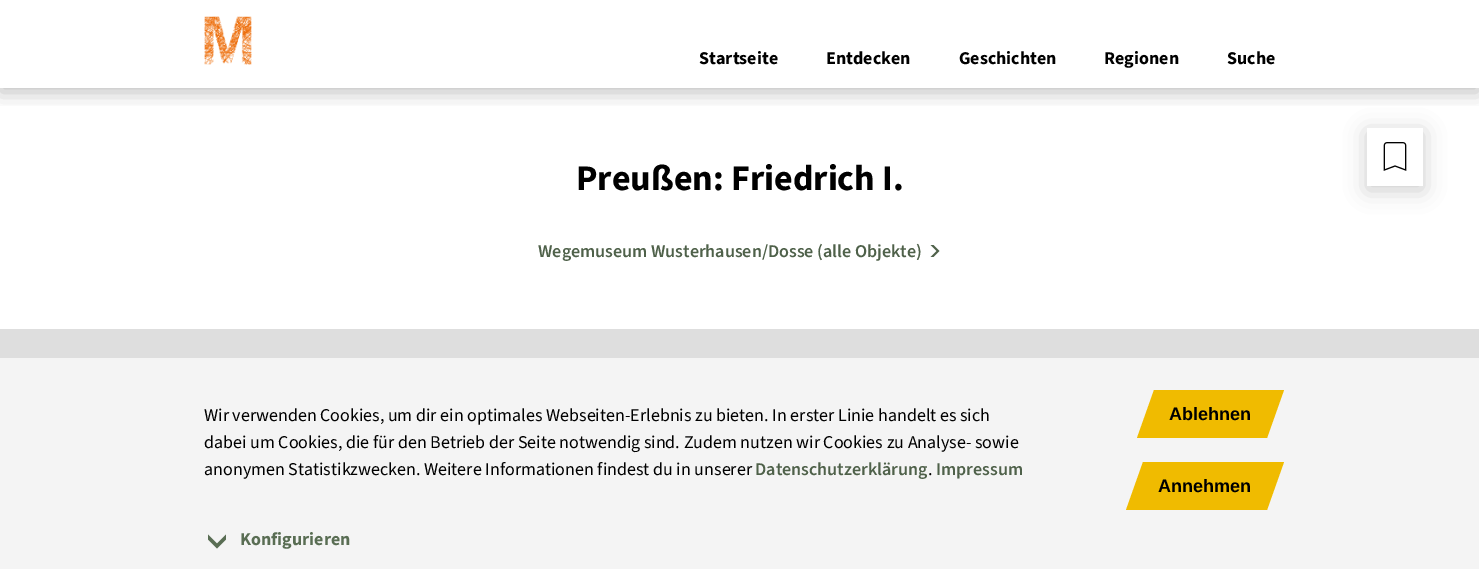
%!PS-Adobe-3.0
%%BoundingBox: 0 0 1479 569
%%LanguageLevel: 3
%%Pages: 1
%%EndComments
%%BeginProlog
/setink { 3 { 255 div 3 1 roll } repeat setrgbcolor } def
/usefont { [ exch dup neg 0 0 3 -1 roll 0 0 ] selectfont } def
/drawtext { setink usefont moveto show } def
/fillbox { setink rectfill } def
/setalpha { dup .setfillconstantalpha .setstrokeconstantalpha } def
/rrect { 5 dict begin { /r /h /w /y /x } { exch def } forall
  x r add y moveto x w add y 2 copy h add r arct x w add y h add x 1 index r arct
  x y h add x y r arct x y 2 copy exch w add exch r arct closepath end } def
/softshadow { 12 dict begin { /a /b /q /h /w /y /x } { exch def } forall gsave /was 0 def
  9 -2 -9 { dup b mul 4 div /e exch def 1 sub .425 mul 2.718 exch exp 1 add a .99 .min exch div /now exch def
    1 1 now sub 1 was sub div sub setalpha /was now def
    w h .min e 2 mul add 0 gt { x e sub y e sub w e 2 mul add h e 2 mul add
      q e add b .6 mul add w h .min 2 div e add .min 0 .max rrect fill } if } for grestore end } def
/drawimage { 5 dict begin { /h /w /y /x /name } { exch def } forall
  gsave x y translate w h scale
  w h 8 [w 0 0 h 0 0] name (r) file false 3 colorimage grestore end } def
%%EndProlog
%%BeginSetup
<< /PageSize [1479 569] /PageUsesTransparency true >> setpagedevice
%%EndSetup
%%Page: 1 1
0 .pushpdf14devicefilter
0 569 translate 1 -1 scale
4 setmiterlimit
0 0 1479 569 255 255 255 fillbox
gsave
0 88 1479 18 rectclip
0 0 0 setink
0 4 1479 88 0 10 0.25 softshadow
grestore
(assets/img1.rgb) 204 16 48 49 drawimage
(Startseite) 699 64 /SourceSans3-ExtraLight 18 0 0 0 drawtext
(Entdecken) 826 64 /SourceSans3-ExtraLight 18 0 0 0 drawtext
(Geschichten) 959 64 /SourceSans3-ExtraLight 18 0 0 0 drawtext
(Regionen) 1104 64 /SourceSans3-ExtraLight 18 0 0 0 drawtext
(Suche) 1227 64 /SourceSans3-ExtraLight 18 0 0 0 drawtext
(Preußen: Friedrich I.) 576 190 /SourceSans3-ExtraLight 36 0 0 0 drawtext
(Wegemuseum Wusterhausen/Dosse \(alle Objekte\)) 538 257 /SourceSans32-ExtraLight 18 79 97 74 drawtext
(assets/img2.rgb) 930 245 10 12 drawimage
0 329 1479 29 222 222 222 fillbox
gsave
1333 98 moveto 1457 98 lineto 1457 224 lineto 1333 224 lineto closepath 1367 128 moveto 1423 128 lineto 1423 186 lineto 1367 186 lineto closepath eoclip newpath
0 0 0 setink
1367 132 56 58 0 11 0.2 softshadow
grestore
(assets/img3.rgb) 1383 142 24 29 drawimage
0 358 1479 211 244 244 244 fillbox
(Wir verwenden Cookies, um dir ein optimales Webseiten-Erlebnis zu bieten. In erster Linie handelt es sich) 204 421 /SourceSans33-ExtraLight 18 0 0 0 drawtext
(dabei um Cookies, die für den Betrieb der Seite notwendig sind. Zudem nutzen wir Cookies zu Analyse- sowie) 204 448 /SourceSans33-ExtraLight 18 0 0 0 drawtext
(anonymen Statistikzwecken. Weitere Informationen findest du in unserer) 204 475 /SourceSans33-ExtraLight 18 0 0 0 drawtext
(Datenschutzerklärung) 755 475 /SourceSans32-ExtraLight 18 79 97 74 drawtext
(.) 928 475 /SourceSans33-ExtraLight 18 0 0 0 drawtext
(Impressum) 936 475 /SourceSans32-ExtraLight 18 79 97 74 drawtext
240 187 0 setink
1154 390 moveto 1252 390 lineto 1234 438 lineto 1137 438 lineto closepath fill
1187 390 moveto 1284 390 lineto 1267 438 lineto 1169 438 lineto closepath fill
(Ablehnen) 1169 420 /LiberationSans-Bold 18 0 0 0 drawtext
240 187 0 setink
1143 462 moveto 1249 462 lineto 1231 510 lineto 1126 510 lineto closepath fill
1178 462 moveto 1284 462 lineto 1267 510 lineto 1161 510 lineto closepath fill
(Annehmen) 1158 492 /LiberationSans-Bold 18 0 0 0 drawtext
89 109 83 setink
226 539.5 moveto 226 534.5 lineto 217 543.5 lineto 208 534.5 lineto 208 539.5 lineto 217 548.5 lineto closepath fill
(Konfigurieren) 240 545 /SourceSans3-ExtraLight 18 89 109 83 drawtext
.poppdf14devicefilter showpage
%%EOF
